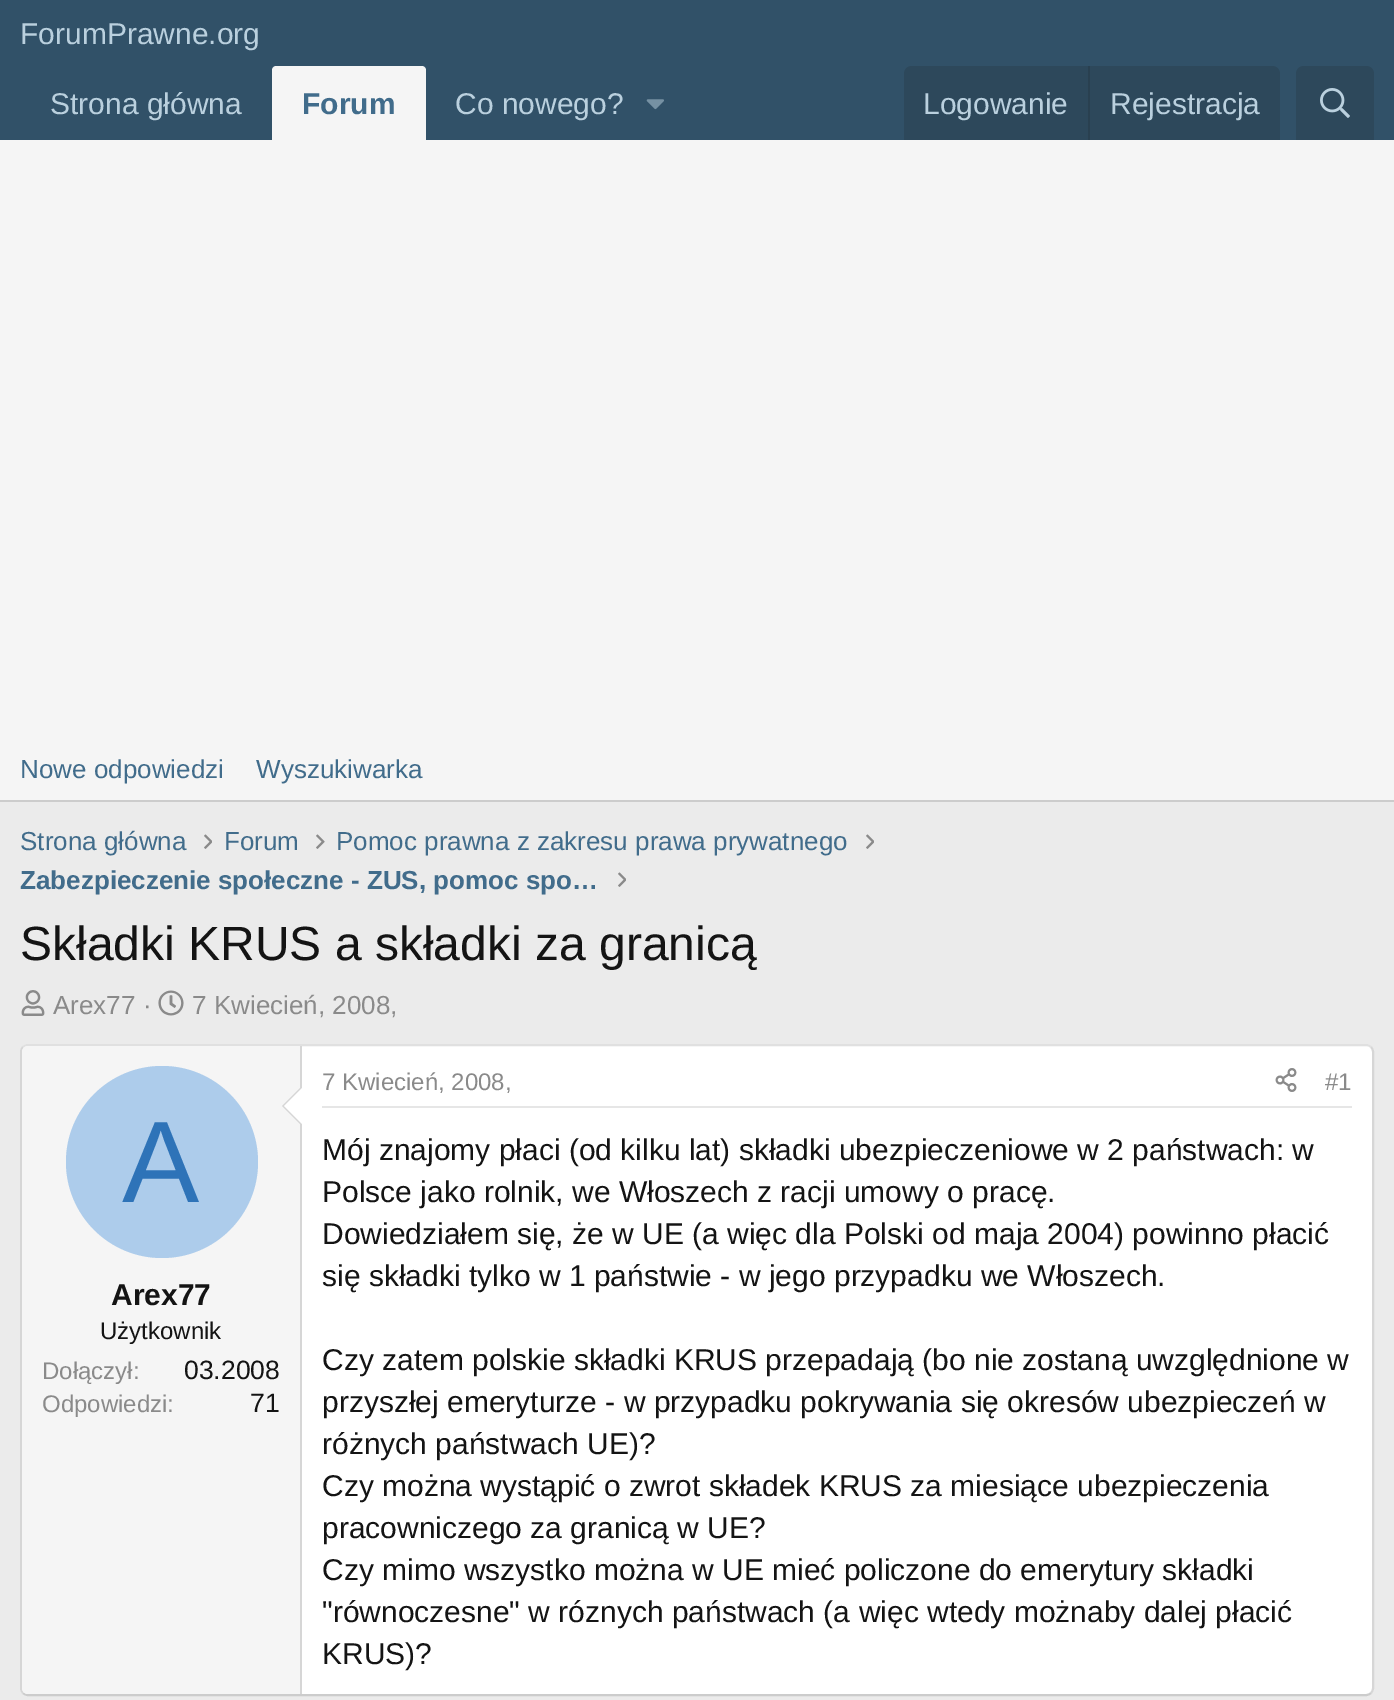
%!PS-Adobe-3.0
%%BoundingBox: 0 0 1394 1700
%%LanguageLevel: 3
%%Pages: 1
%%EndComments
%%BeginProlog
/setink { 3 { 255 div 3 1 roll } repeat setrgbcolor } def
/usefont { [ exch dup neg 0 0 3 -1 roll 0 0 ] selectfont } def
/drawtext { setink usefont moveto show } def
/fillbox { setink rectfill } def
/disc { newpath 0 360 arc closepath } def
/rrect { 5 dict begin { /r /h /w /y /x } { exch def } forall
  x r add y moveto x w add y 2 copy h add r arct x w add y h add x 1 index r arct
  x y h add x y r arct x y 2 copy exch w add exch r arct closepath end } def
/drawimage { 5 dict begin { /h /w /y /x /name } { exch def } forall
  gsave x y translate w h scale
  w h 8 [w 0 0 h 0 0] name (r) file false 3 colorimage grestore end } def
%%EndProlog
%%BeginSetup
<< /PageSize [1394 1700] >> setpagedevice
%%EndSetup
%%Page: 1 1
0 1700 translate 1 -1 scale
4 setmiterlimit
0 0 1394 1700 235 235 235 fillbox
0 0 1394 140 49 81 104 fillbox
(ForumPrawne.org) 20 44 /LiberationSans-Regular 30 186 208 222 drawtext
(Strona główna) 50 114 /LiberationSans-Regular 30 186 208 222 drawtext
245 245 245 setink
276 66 moveto 422 66 lineto 424 66 426 68 426 70 curveto 426 140 lineto 272 140 lineto 272 70 lineto 272 68 274 66 276 66 curveto closepath fill
(Forum) 302 114 /LiberationSans-Bold 30 65 108 139 drawtext
(Co nowego?) 455 114 /LiberationSans-Regular 30 186 208 222 drawtext
(assets/img1.rgb) 646 99 18 11 drawimage
45 72 91 setink
912 66 moveto 1272 66 lineto 1276.5 66 1280 69.5 1280 74 curveto 1280 140 lineto 904 140 lineto 904 74 lineto 904 69.5 907.5 66 912 66 curveto closepath fill
(Logowanie) 923 114 /LiberationSans-Regular 30 186 208 222 drawtext
1088 66 2 74 41 64 80 fillbox
(Rejestracja) 1110 114 /LiberationSans-Regular 30 186 208 222 drawtext
45 72 91 setink
1304 66 moveto 1366 66 lineto 1370.5 66 1374 69.5 1374 74 curveto 1374 140 lineto 1296 140 lineto 1296 74 lineto 1296 69.5 1299.5 66 1304 66 curveto closepath fill
(assets/img2.rgb) 1320 88 30 30 drawimage
0 140 1394 660 245 245 245 fillbox
0 800 1394 2 204 204 204 fillbox
(Nowe odpowiedzi) 20 778 /LiberationSans-Regular 26 65 108 139 drawtext
(Wyszukiwarka) 256 778 /LiberationSans-Regular 26 65 108 139 drawtext
(Strona główna) 20 850 /LiberationSans-Regular 26 65 108 139 drawtext
(assets/img3.rgb) 204 834 8 15 drawimage
(Forum) 224 850 /LiberationSans-Regular 26 65 108 139 drawtext
(assets/img4.rgb) 316 834 9 15 drawimage
(Pomoc prawna z zakresu prawa prywatnego) 336 850 /LiberationSans-Regular 26 65 108 139 drawtext
(assets/img3.rgb) 866 834 8 15 drawimage
(Zabezpieczenie społeczne - ZUS, pomoc spo…) 20 889 /LiberationSans-Bold 26 65 108 139 drawtext
(assets/img3.rgb) 618 872 8 15 drawimage
(Składki KRUS a składki za granicą) 20 960 /LiberationSans-Regular 48 20 20 20 drawtext
(assets/img5.rgb) 21 990 24 26 drawimage
(Arex77 ·) 53 1014 /LiberationSans-Regular 26 138 138 138 drawtext
(assets/img6.rgb) 158 990 26 26 drawimage
(7 Kwiecień, 2008,) 192 1014 /LiberationSans-Regular 26 138 138 138 drawtext
255 255 255 setink
20 1044 1354 652 8 rrect fill
224 224 224 setink
2 setlinewidth
23 1047 moveto 24.5 1045.5 26 1045 28 1045 curveto 1366 1045 lineto 1368 1045 1369.5 1045.5 1371 1047 curveto stroke
214 214 214 setink
1371 1047 moveto 1372.5 1048.5 1373 1050 1373 1052 curveto 1373 1688 lineto 1373 1690 1372.5 1691.5 1371 1693 curveto stroke
204 204 204 setink
1371 1693 moveto 1369.5 1694.5 1368 1695 1366 1695 curveto 28 1695 lineto 26 1695 24.5 1694.5 23 1693 curveto stroke
214 214 214 setink
23 1693 moveto 21.5 1691.5 21 1690 21 1688 curveto 21 1052 lineto 21 1050 21.5 1048.5 23 1047 curveto stroke
245 245 245 setink
28 1046 moveto 302 1046 lineto 302 1694 lineto 28 1694 lineto 24.5 1694 22 1691.5 22 1688 curveto 22 1052 lineto 22 1048.5 24.5 1046 28 1046 curveto closepath fill
300 1046 2 648 214 214 214 fillbox
302 1086 moveto 302 1126 lineto 282 1106 lineto closepath fill
255 255 255 setink
302 1088 moveto 302 1124 lineto 284 1106 lineto closepath fill
173 204 235 setink
162 1162 96 disc fill
(A) 122 1202 /LiberationSans-Regular 116 46 115 184 drawtext
(Arex77) 111 1305 /LiberationSans-Bold 30 20 20 20 drawtext
(Użytkownik) 100 1339 /LiberationSans-Regular 24 20 20 20 drawtext
(Dołączył:) 42 1379 /LiberationSans-Regular 24 138 138 138 drawtext
(03.2008) 184 1379 /LiberationSans-Regular 26.5 20 20 20 drawtext
(Odpowiedzi:) 42 1412 /LiberationSans-Regular 24 138 138 138 drawtext
(71) 250 1412 /LiberationSans-Regular 26.5 20 20 20 drawtext
322 1106 1030 2 230 230 230 fillbox
(7 Kwiecień, 2008,) 322 1090 /LiberationSans-Regular 24 138 138 138 drawtext
(assets/img7.rgb) 1275 1068 22 24 drawimage
(#1) 1325 1090 /LiberationSans-Regular 24 138 138 138 drawtext
(Mój znajomy płaci \(od kilku lat\) składki ubezpieczeniowe w 2 państwach: w) 322 1160 /LiberationSans-Regular 30 20 20 20 drawtext
(Polsce jako rolnik, we Włoszech z racji umowy o pracę.) 322 1202 /LiberationSans-Regular 30 20 20 20 drawtext
(Dowiedziałem się, że w UE \(a więc dla Polski od maja 2004\) powinno płacić) 322 1244 /LiberationSans-Regular 30 20 20 20 drawtext
(się składki tylko w 1 państwie - w jego przypadku we Włoszech.) 322 1286 /LiberationSans-Regular 30 20 20 20 drawtext
(Czy zatem polskie składki KRUS przepadają \(bo nie zostaną uwzględnione w) 322 1370 /LiberationSans-Regular 30 20 20 20 drawtext
(przyszłej emeryturze - w przypadku pokrywania się okresów ubezpieczeń w) 322 1412 /LiberationSans-Regular 30 20 20 20 drawtext
(różnych państwach UE\)?) 322 1454 /LiberationSans-Regular 30 20 20 20 drawtext
(Czy można wystąpić o zwrot składek KRUS za miesiące ubezpieczenia) 322 1496 /LiberationSans-Regular 30 20 20 20 drawtext
(pracowniczego za granicą w UE?) 322 1538 /LiberationSans-Regular 30 20 20 20 drawtext
(Czy mimo wszystko można w UE mieć policzone do emerytury składki) 322 1580 /LiberationSans-Regular 30 20 20 20 drawtext
("równoczesne" w róznych państwach \(a więc wtedy możnaby dalej płacić) 322 1622 /LiberationSans-Regular 30 20 20 20 drawtext
(KRUS\)?) 322 1664 /LiberationSans-Regular 30 20 20 20 drawtext
showpage
%%EOF
